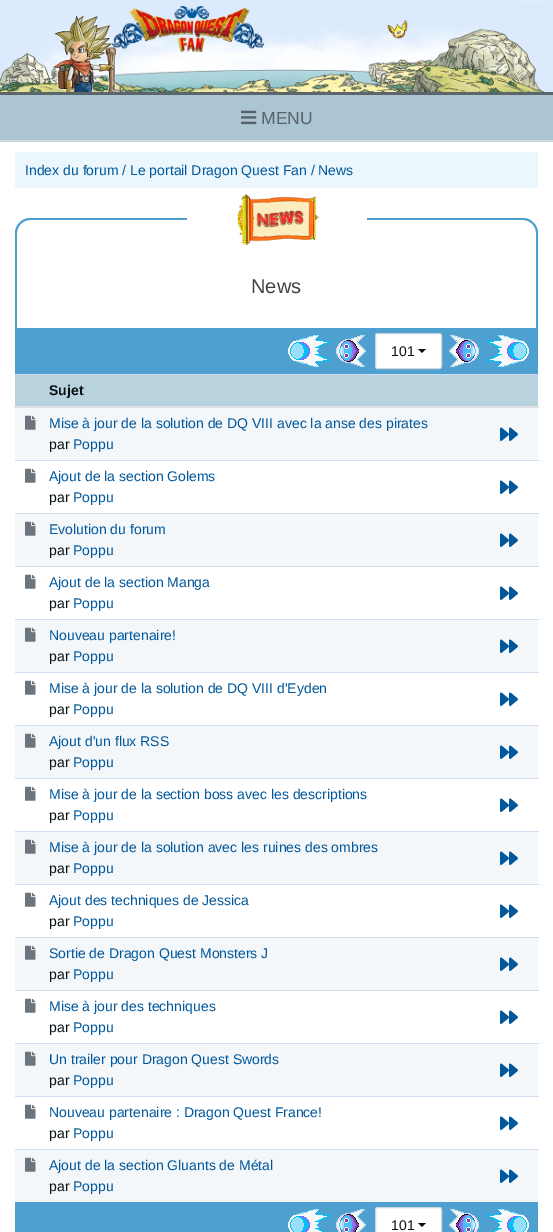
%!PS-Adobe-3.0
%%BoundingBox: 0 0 553 1232
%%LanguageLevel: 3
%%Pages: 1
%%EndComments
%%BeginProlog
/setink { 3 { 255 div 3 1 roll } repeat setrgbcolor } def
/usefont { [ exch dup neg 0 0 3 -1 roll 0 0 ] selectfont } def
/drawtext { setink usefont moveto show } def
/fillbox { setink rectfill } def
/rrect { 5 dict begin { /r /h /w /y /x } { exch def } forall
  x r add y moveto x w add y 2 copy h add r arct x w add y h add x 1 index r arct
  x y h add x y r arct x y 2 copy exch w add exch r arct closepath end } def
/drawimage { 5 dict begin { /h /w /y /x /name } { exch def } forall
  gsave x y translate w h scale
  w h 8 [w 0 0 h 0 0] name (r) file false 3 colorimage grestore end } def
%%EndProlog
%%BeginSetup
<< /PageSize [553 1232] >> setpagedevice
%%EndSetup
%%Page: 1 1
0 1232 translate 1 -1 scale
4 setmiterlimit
0 0 553 1232 219 234 252 fillbox
(assets/img1.rgb) 0 0 545 92 drawimage
(assets/img2.rgb) 53 15 64 77 drawimage
(assets/img3.rgb) 112 6 152 46 drawimage
(assets/img4.rgb) 387 19 21 20 drawimage
0 95 553 45 172 197 211 fillbox
0 92 553 3 92 102 106 fillbox
0 140 553 2 207 217 221 fillbox
(assets/img5.rgb) 241 110 16 15 drawimage
(MENU) 261 124 /LiberationSans-Regular 17.5 86 99 106 drawtext
0 142 553 1090 255 255 255 fillbox
15 152 523 36 235 247 252 fillbox
(Index du forum / Le portail Dragon Quest Fan / News) 25 175 /LiberationSans-Regular 14 1 87 155 drawtext
78 160 209 setink
30 218 moveto 523 218 lineto 531 218 538 225 538 233 curveto 538 328 lineto 15 328 lineto 15 233 lineto 15 225 22 218 30 218 curveto closepath 30 220 moveto 523 220 lineto 530 220 536 226 536 233 curveto 536 328 lineto 17 328 lineto 17 233 lineto 17 226 23 220 30 220 curveto closepath eofill
187 218 180 2 255 255 255 fillbox
(assets/img6.rgb) 237 194 82 52 drawimage
(News) 251 293 /LiberationSans-Regular 20 66 66 66 drawtext
15 328 523 46 78 160 209 fillbox
(assets/img7.rgb) 288 335 43 32 drawimage
(assets/img8.rgb) 336 335 30 32 drawimage
255 255 255 setink
375.5 333.5 66 35 2 rrect gsave fill grestore
206 212 218 setink
stroke
(101) 391 356 /LiberationSans-Regular 14 7 16 19 drawtext
418 349 moveto 426 349 lineto 422 353 lineto closepath fill
(assets/img9.rgb) 449 335 30 32 drawimage
(assets/img10.rgb) 486 335 43 32 drawimage
15 375 523 31 184 210 222 fillbox
15 374 524 1 208 222 239 fillbox
14 406 525 2 222 226 230 fillbox
(Sujet) 49 395 /LiberationSans-Bold 14 7 16 19 drawtext
15 408 523 52 244 247 250 fillbox
(assets/img11.rgb) 25 415 11 15 drawimage
(Mise à jour de la solution de DQ VIII avec la anse des pirates) 49 428 /LiberationSans-Regular 14 1 87 155 drawtext
(par) 49 449 /LiberationSans-Regular 14 7 16 19 drawtext
(Poppu) 73 449 /LiberationSans-Regular 14 1 87 155 drawtext
(assets/img12.rgb) 500 427 18 14 drawimage
15 460 524 1 208 222 239 fillbox
(assets/img13.rgb) 500 480 18 14 drawimage
(assets/img14.rgb) 25 468 11 15 drawimage
(Ajout de la section Golems) 49 481 /LiberationSans-Regular 14 1 87 155 drawtext
(par) 49 502 /LiberationSans-Regular 14 7 16 19 drawtext
(Poppu) 73 502 /LiberationSans-Regular 14 1 87 155 drawtext
15 514 523 52 244 247 250 fillbox
15 513 524 1 208 222 239 fillbox
(assets/img12.rgb) 500 533 18 14 drawimage
(assets/img11.rgb) 25 521 11 15 drawimage
(Evolution du forum) 49 534 /LiberationSans-Regular 14 1 87 155 drawtext
(par) 49 555 /LiberationSans-Regular 14 7 16 19 drawtext
(Poppu) 73 555 /LiberationSans-Regular 14 1 87 155 drawtext
15 566 524 1 208 222 239 fillbox
(assets/img13.rgb) 500 586 18 14 drawimage
(assets/img14.rgb) 25 574 11 15 drawimage
(Ajout de la section Manga) 49 587 /LiberationSans-Regular 14 1 87 155 drawtext
(par) 49 608 /LiberationSans-Regular 14 7 16 19 drawtext
(Poppu) 73 608 /LiberationSans-Regular 14 1 87 155 drawtext
15 620 523 52 244 247 250 fillbox
15 619 524 1 208 222 239 fillbox
(assets/img12.rgb) 500 639 18 14 drawimage
(assets/img11.rgb) 25 627 11 15 drawimage
(Nouveau partenaire!) 49 640 /LiberationSans-Regular 14 1 87 155 drawtext
(par) 49 661 /LiberationSans-Regular 14 7 16 19 drawtext
(Poppu) 73 661 /LiberationSans-Regular 14 1 87 155 drawtext
15 672 524 1 208 222 239 fillbox
(assets/img13.rgb) 500 692 18 14 drawimage
(assets/img14.rgb) 25 680 11 15 drawimage
(Mise à jour de la solution de DQ VIII d'Eyden) 49 693 /LiberationSans-Regular 14 1 87 155 drawtext
(par) 49 714 /LiberationSans-Regular 14 7 16 19 drawtext
(Poppu) 73 714 /LiberationSans-Regular 14 1 87 155 drawtext
15 726 523 52 244 247 250 fillbox
15 725 524 1 208 222 239 fillbox
(assets/img12.rgb) 500 745 18 14 drawimage
(assets/img11.rgb) 25 733 11 15 drawimage
(Ajout d'un flux RSS) 49 746 /LiberationSans-Regular 14 1 87 155 drawtext
(par) 49 767 /LiberationSans-Regular 14 7 16 19 drawtext
(Poppu) 73 767 /LiberationSans-Regular 14 1 87 155 drawtext
15 778 524 1 208 222 239 fillbox
(assets/img13.rgb) 500 798 18 14 drawimage
(assets/img14.rgb) 25 786 11 15 drawimage
(Mise à jour de la section boss avec les descriptions) 49 799 /LiberationSans-Regular 14 1 87 155 drawtext
(par) 49 820 /LiberationSans-Regular 14 7 16 19 drawtext
(Poppu) 73 820 /LiberationSans-Regular 14 1 87 155 drawtext
15 832 523 52 244 247 250 fillbox
15 831 524 1 208 222 239 fillbox
(assets/img12.rgb) 500 851 18 14 drawimage
(assets/img11.rgb) 25 839 11 15 drawimage
(Mise à jour de la solution avec les ruines des ombres) 49 852 /LiberationSans-Regular 14 1 87 155 drawtext
(par) 49 873 /LiberationSans-Regular 14 7 16 19 drawtext
(Poppu) 73 873 /LiberationSans-Regular 14 1 87 155 drawtext
15 884 524 1 208 222 239 fillbox
(assets/img13.rgb) 500 904 18 14 drawimage
(assets/img14.rgb) 25 892 11 15 drawimage
(Ajout des techniques de Jessica) 49 905 /LiberationSans-Regular 14 1 87 155 drawtext
(par) 49 926 /LiberationSans-Regular 14 7 16 19 drawtext
(Poppu) 73 926 /LiberationSans-Regular 14 1 87 155 drawtext
15 938 523 52 244 247 250 fillbox
15 937 524 1 208 222 239 fillbox
(assets/img12.rgb) 500 957 18 14 drawimage
(assets/img11.rgb) 25 945 11 15 drawimage
(Sortie de Dragon Quest Monsters J) 49 958 /LiberationSans-Regular 14 1 87 155 drawtext
(par) 49 979 /LiberationSans-Regular 14 7 16 19 drawtext
(Poppu) 73 979 /LiberationSans-Regular 14 1 87 155 drawtext
15 990 524 1 208 222 239 fillbox
(assets/img13.rgb) 500 1010 18 14 drawimage
(assets/img14.rgb) 25 998 11 15 drawimage
(Mise à jour des techniques) 49 1011 /LiberationSans-Regular 14 1 87 155 drawtext
(par) 49 1032 /LiberationSans-Regular 14 7 16 19 drawtext
(Poppu) 73 1032 /LiberationSans-Regular 14 1 87 155 drawtext
15 1044 523 52 244 247 250 fillbox
15 1043 524 1 208 222 239 fillbox
(assets/img12.rgb) 500 1063 18 14 drawimage
(assets/img11.rgb) 25 1051 11 15 drawimage
(Un trailer pour Dragon Quest Swords) 49 1064 /LiberationSans-Regular 14 1 87 155 drawtext
(par) 49 1085 /LiberationSans-Regular 14 7 16 19 drawtext
(Poppu) 73 1085 /LiberationSans-Regular 14 1 87 155 drawtext
15 1096 524 1 208 222 239 fillbox
(assets/img13.rgb) 500 1116 18 14 drawimage
(assets/img14.rgb) 25 1104 11 15 drawimage
(Nouveau partenaire : Dragon Quest France!) 49 1117 /LiberationSans-Regular 14 1 87 155 drawtext
(par) 49 1138 /LiberationSans-Regular 14 7 16 19 drawtext
(Poppu) 73 1138 /LiberationSans-Regular 14 1 87 155 drawtext
15 1150 523 52 244 247 250 fillbox
15 1149 524 1 208 222 239 fillbox
(assets/img12.rgb) 500 1169 18 14 drawimage
(assets/img11.rgb) 25 1157 11 15 drawimage
(Ajout de la section Gluants de Métal) 49 1170 /LiberationSans-Regular 14 1 87 155 drawtext
(par) 49 1191 /LiberationSans-Regular 14 7 16 19 drawtext
(Poppu) 73 1191 /LiberationSans-Regular 14 1 87 155 drawtext
15 1202 523 30 78 160 209 fillbox
(assets/img15.rgb) 288 1209 43 23 drawimage
(assets/img16.rgb) 336 1209 30 23 drawimage
255 255 255 setink
375.5 1207.5 66 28 2 rrect gsave fill grestore
206 212 218 setink
stroke
(101) 391 1230 /LiberationSans-Regular 14 7 16 19 drawtext
418 1223 moveto 426 1223 lineto 422 1227 lineto closepath fill
(assets/img17.rgb) 449 1209 30 23 drawimage
(assets/img18.rgb) 486 1209 43 23 drawimage
showpage
%%EOF
